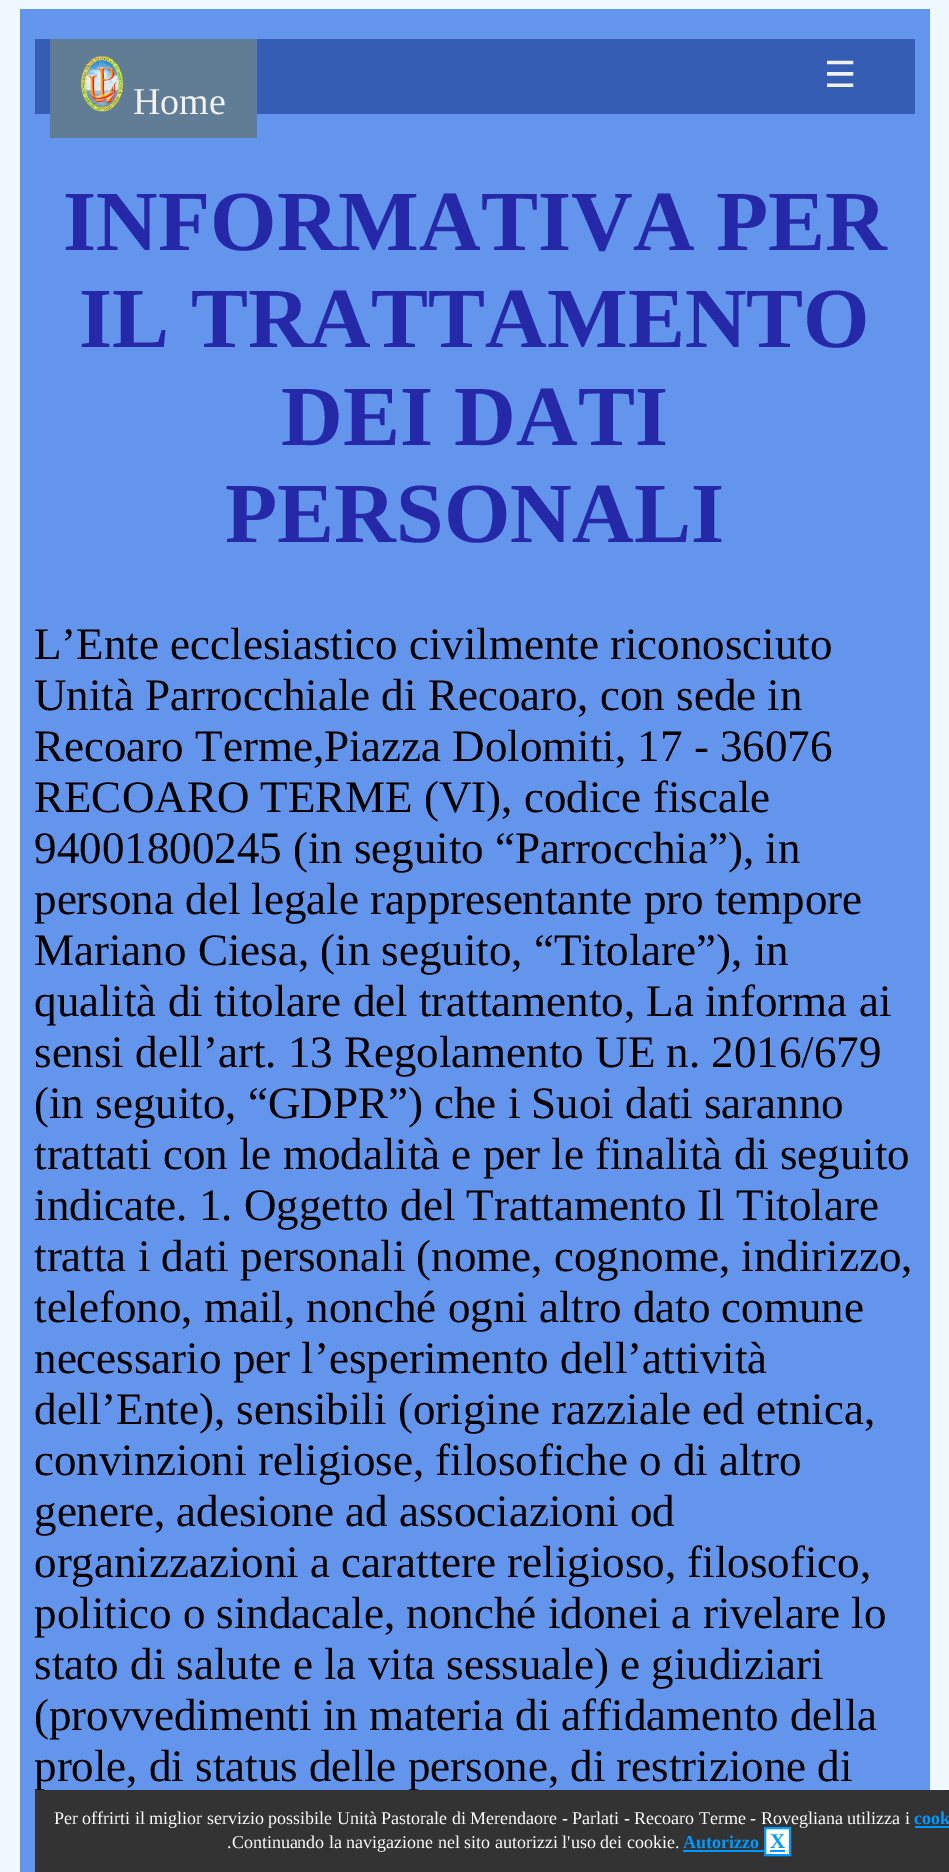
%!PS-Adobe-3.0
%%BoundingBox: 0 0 949 1872
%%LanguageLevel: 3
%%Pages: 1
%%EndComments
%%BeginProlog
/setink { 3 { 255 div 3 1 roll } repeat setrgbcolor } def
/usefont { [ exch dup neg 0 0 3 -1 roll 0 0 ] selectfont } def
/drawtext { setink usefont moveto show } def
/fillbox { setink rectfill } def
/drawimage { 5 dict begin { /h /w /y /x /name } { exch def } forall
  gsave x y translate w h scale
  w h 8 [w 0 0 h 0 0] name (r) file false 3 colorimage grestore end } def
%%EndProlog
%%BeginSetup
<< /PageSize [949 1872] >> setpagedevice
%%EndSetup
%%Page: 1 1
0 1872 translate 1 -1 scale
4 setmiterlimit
0 0 949 1872 240 248 255 fillbox
20 9 910 1863 100 149 237 fillbox
35 39 880 75 53 93 180 fillbox
(☰) 824 87 /DejaVuSans-Regular 36 242 242 242 drawtext
50 39 207 99 97 125 149 fillbox
(assets/img1.rgb) 81 56 43 56 drawimage
(Home) 133 114 /LiberationSerif-Regular 38 242 242 242 drawtext
(INFORMATIVA PER) 63 250 /LiberationSerif-Bold 85.5 38 41 167 drawtext
(IL TRATTAMENTO) 79 347 /LiberationSerif-Bold 85.5 38 41 167 drawtext
(DEI DATI) 281 445 /LiberationSerif-Bold 85.5 38 41 167 drawtext
(PERSONALI) 225 542 /LiberationSerif-Bold 85.5 38 41 167 drawtext
(L’Ente ecclesiastico civilmente riconosciuto) 34 659 /LiberationSerif-Regular 45 0 0 0 drawtext
(Unità Parrocchiale di Recoaro, con sede in) 34 710 /LiberationSerif-Regular 45 0 0 0 drawtext
(Recoaro Terme,Piazza Dolomiti, 17 - 36076) 34 761 /LiberationSerif-Regular 45 0 0 0 drawtext
(RECOARO TERME \(VI\), codice fiscale) 34 812 /LiberationSerif-Regular 45 0 0 0 drawtext
(94001800245 \(in seguito “Parrocchia”\), in) 34 863 /LiberationSerif-Regular 45 0 0 0 drawtext
(persona del legale rappresentante pro tempore) 34 914 /LiberationSerif-Regular 45 0 0 0 drawtext
(Mariano Ciesa, \(in seguito, “Titolare”\), in) 34 965 /LiberationSerif-Regular 45 0 0 0 drawtext
(qualità di titolare del trattamento, La informa ai) 34 1016 /LiberationSerif-Regular 45 0 0 0 drawtext
(sensi dell’art. 13 Regolamento UE n. 2016/679) 34 1067 /LiberationSerif-Regular 45 0 0 0 drawtext
(\(in seguito, “GDPR”\) che i Suoi dati saranno) 34 1118 /LiberationSerif-Regular 45 0 0 0 drawtext
(trattati con le modalità e per le finalità di seguito) 34 1169 /LiberationSerif-Regular 45 0 0 0 drawtext
(indicate. 1. Oggetto del Trattamento Il Titolare) 34 1220 /LiberationSerif-Regular 45 0 0 0 drawtext
(tratta i dati personali \(nome, cognome, indirizzo,) 34 1271 /LiberationSerif-Regular 45 0 0 0 drawtext
(telefono, mail, nonché ogni altro dato comune) 34 1322 /LiberationSerif-Regular 45 0 0 0 drawtext
(necessario per l’esperimento dell’attività) 34 1373 /LiberationSerif-Regular 45 0 0 0 drawtext
(dell’Ente\), sensibili \(origine razziale ed etnica,) 34 1424 /LiberationSerif-Regular 45 0 0 0 drawtext
(convinzioni religiose, filosofiche o di altro) 34 1475 /LiberationSerif-Regular 45 0 0 0 drawtext
(genere, adesione ad associazioni od) 34 1526 /LiberationSerif-Regular 45 0 0 0 drawtext
(organizzazioni a carattere religioso, filosofico,) 34 1577 /LiberationSerif-Regular 45 0 0 0 drawtext
(politico o sindacale, nonché idonei a rivelare lo) 34 1628 /LiberationSerif-Regular 45 0 0 0 drawtext
(stato di salute e la vita sessuale\) e giudiziari) 34 1679 /LiberationSerif-Regular 45 0 0 0 drawtext
(\(provvedimenti in materia di affidamento della) 34 1730 /LiberationSerif-Regular 45 0 0 0 drawtext
(prole, di status delle persone, di restrizione di) 34 1781 /LiberationSerif-Regular 45 0 0 0 drawtext
35 1790 914 82 51 51 51 fillbox
(Per offrirti il miglior servizio possibile Unità Pastorale di Merendaore - Parlati - Recoaro Terme - Rovegliana utilizza i) 54 1824 /LiberationSerif-Regular 18 255 255 255 drawtext
(cook) 914 1824 /LiberationSerif-Bold 18 0 153 255 drawtext
915 1826 34 2 0 153 255 fillbox
(.Continuando la navigazione nel sito autorizzi l'uso dei cookie.) 227 1848 /LiberationSerif-Regular 18 255 255 255 drawtext
(Autorizzo) 683 1848 /LiberationSerif-Bold 18 0 153 255 drawtext
683 1850 81 2 0 153 255 fillbox
255 255 255 setink
765 1828 moveto 790 1828 lineto 790 1855 lineto 765 1855 lineto closepath gsave fill grestore
0 153 255 setink
2 setlinewidth
stroke
(X) 770 1848 /LiberationSerif-Bold 21 0 153 255 drawtext
770 1850 15 2 0 153 255 fillbox
showpage
%%EOF
